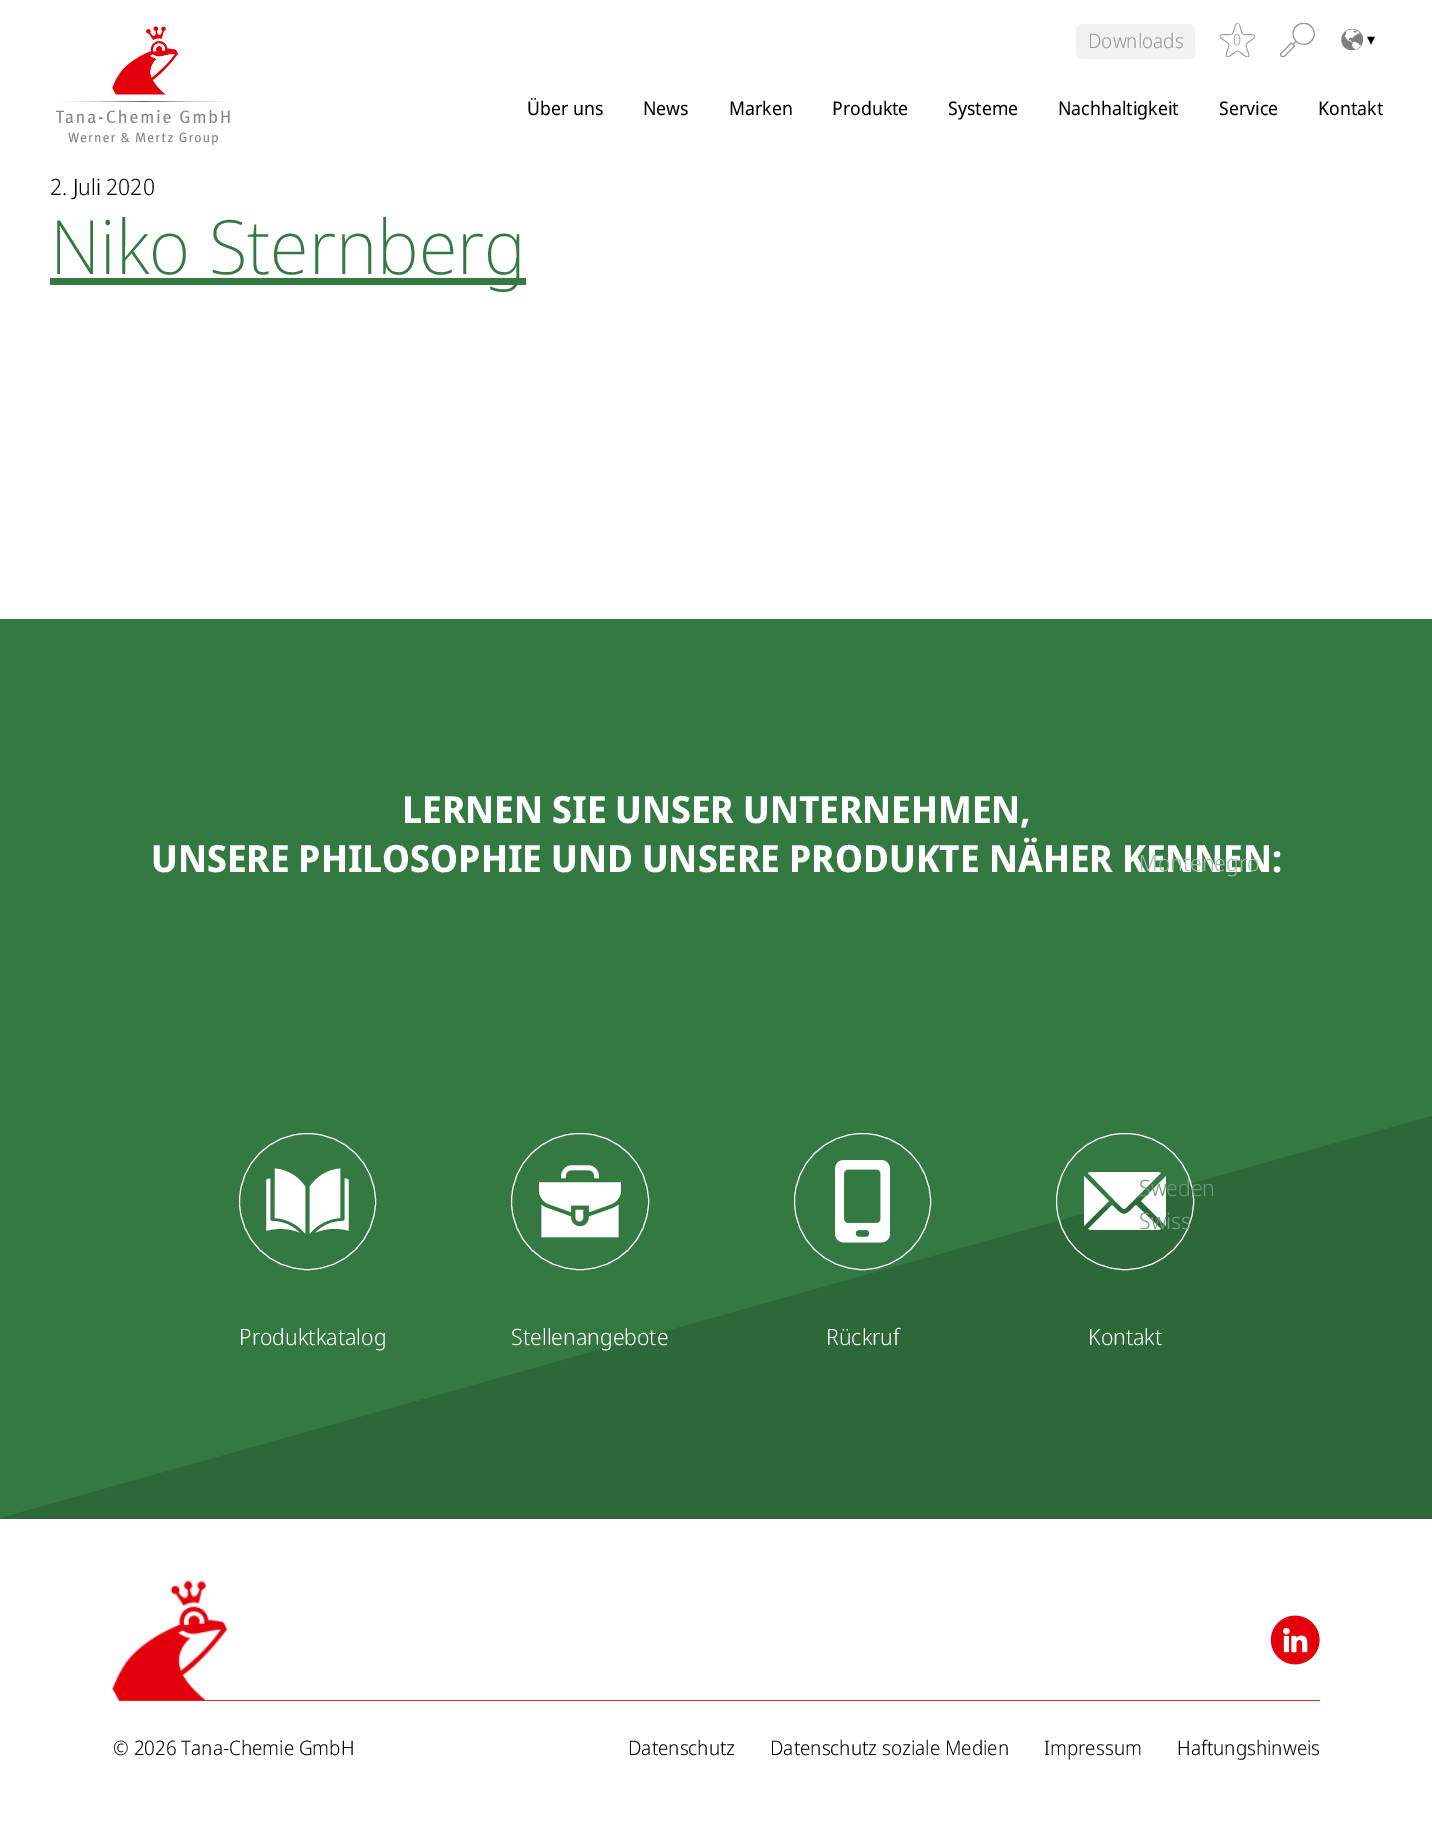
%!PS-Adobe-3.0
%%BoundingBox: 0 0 1432 1822
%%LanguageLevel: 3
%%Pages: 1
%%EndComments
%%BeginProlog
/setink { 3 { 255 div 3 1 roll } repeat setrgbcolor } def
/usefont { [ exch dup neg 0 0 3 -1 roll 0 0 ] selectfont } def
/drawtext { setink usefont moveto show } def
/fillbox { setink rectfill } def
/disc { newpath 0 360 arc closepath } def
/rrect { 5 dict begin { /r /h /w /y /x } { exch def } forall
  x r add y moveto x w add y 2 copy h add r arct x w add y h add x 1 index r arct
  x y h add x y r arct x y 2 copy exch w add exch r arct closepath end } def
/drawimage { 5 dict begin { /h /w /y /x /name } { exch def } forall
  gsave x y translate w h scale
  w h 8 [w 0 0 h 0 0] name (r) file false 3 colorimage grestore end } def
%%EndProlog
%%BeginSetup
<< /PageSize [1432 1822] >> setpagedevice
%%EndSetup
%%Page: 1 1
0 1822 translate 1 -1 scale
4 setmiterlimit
0 0 1432 1822 255 255 255 fillbox
(2. Juli 2020) 50 195 /NotoSansDisplay-Light 22.5 0 0 0 drawtext
50 278 476 7 52 120 66 fillbox
(Niko Sternberg) 50 274 /NotoSansDisplay-ExtraLight 75 52 120 66 drawtext
(assets/img1.rgb) 55 26 175 119 drawimage
242 242 242 setink
1076.5 24.5 118 34 5.5 rrect gsave fill grestore
stroke
(Downloads) 1088 48 /NotoSansDisplay-Light 20 153 153 153 drawtext
(assets/img2.rgb) 1220 22 35 36 drawimage
(0) 1233 45 /NotoSansDisplay-Light 15 153 153 153 drawtext
(assets/img3.rgb) 1280 22 35 36 drawimage
(assets/img4.rgb) 1341 29 22 21 drawimage
(▾) 1367 45 /DejaVuSans-Regular 16 0 0 0 drawtext
(Über uns) 527 115 /NotoSansDisplay-Regular 18.75 0 0 0 drawtext
(News) 643 115 /NotoSansDisplay-Regular 18.75 0 0 0 drawtext
(Marken) 729 115 /NotoSansDisplay-Regular 18.75 0 0 0 drawtext
(Produkte) 832 115 /NotoSansDisplay-Regular 18.75 0 0 0 drawtext
(Systeme) 948 115 /NotoSansDisplay-Regular 18.75 0 0 0 drawtext
(Nachhaltigkeit) 1058 115 /NotoSansDisplay-Regular 18.75 0 0 0 drawtext
(Service) 1219 115 /NotoSansDisplay-Regular 18.75 0 0 0 drawtext
(Kontakt) 1318 115 /NotoSansDisplay-Regular 18.75 0 0 0 drawtext
0 619 1432 900 52 120 66 fillbox
(UNSERE PHILOSOPHIE UND UNSERE PRODUKTE NÄHER KENNEN:) 151 872 /NotoSansDisplay-Bold 37.5 255 255 255 drawtext
(Montenegro) 1139 871 /NotoSansDisplay-Light 22.5 154 188 161 drawtext
45 104 57 setink
1432 1519 moveto -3 1519 lineto 1432 1116 lineto closepath eofill
255 255 255 setink
1056.5 1133.5 137 136 68 rrect stroke
1136 1205 moveto 1124 1217 1124 1217 1112 1205 curveto 1088 1229 lineto 1091 1230 lineto 1158 1230 lineto 1161 1229 lineto closepath eofill
1158 1172 moveto 1091 1172 lineto 1088 1173 lineto 1122 1208 lineto 1124 1209 lineto 1126 1208 lineto 1161 1173 lineto closepath eofill
1166 1176 moveto 1141 1201 lineto 1166 1226 lineto 1166 1223 lineto 1166 1180 lineto closepath eofill
(Sweden) 1139 1196 /NotoSansDisplay-Light 22.5 107 151 116 drawtext
(Swiss) 1139 1229 /NotoSansDisplay-Light 22.5 120 158 128 drawtext
(LERNEN SIE UNSER UNTERNEHMEN,) 402 823 /NotoSansDisplay-Bold 37.5 255 255 255 drawtext
307.5 1201.5 68 disc stroke
(assets/img5.rgb) 266 1168 83 66 drawimage
(Produktkatalog) 239 1345 /NotoSansDisplay-Light 22.5 255 255 255 drawtext
511.5 1133.5 137 136 68 rrect stroke
(assets/img6.rgb) 539 1165 82 73 drawimage
(Stellenangebote) 511 1345 /NotoSansDisplay-Light 22.5 255 255 255 drawtext
862.5 1201.5 68 disc stroke
(assets/img7.rgb) 835 1160 55 83 drawimage
(Rückruf) 826 1345 /NotoSansDisplay-Light 22.5 255 255 255 drawtext
1084 1176 moveto 1084 1180 lineto 1084 1223 lineto 1084 1226 lineto 1109 1201 lineto closepath eofill
(Kontakt) 1088 1345 /NotoSansDisplay-Light 22.5 255 255 255 drawtext
(assets/img8.rgb) 112 1581 116 119 drawimage
(assets/img9.rgb) 1270 1615 50 50 drawimage
119 1700 1201 1 208 44 34 fillbox
(© 2026 Tana-Chemie GmbH) 113 1755 /NotoSansDisplay-Light 20 0 0 0 drawtext
(Datenschutz) 628 1755 /NotoSansDisplay-Light 20 0 0 0 drawtext
(Datenschutz soziale Medien) 770 1755 /NotoSansDisplay-Light 20 0 0 0 drawtext
(Impressum) 1044 1755 /NotoSansDisplay-Light 20 0 0 0 drawtext
(Haftungshinweis) 1177 1755 /NotoSansDisplay-Light 20 0 0 0 drawtext
showpage
%%EOF
